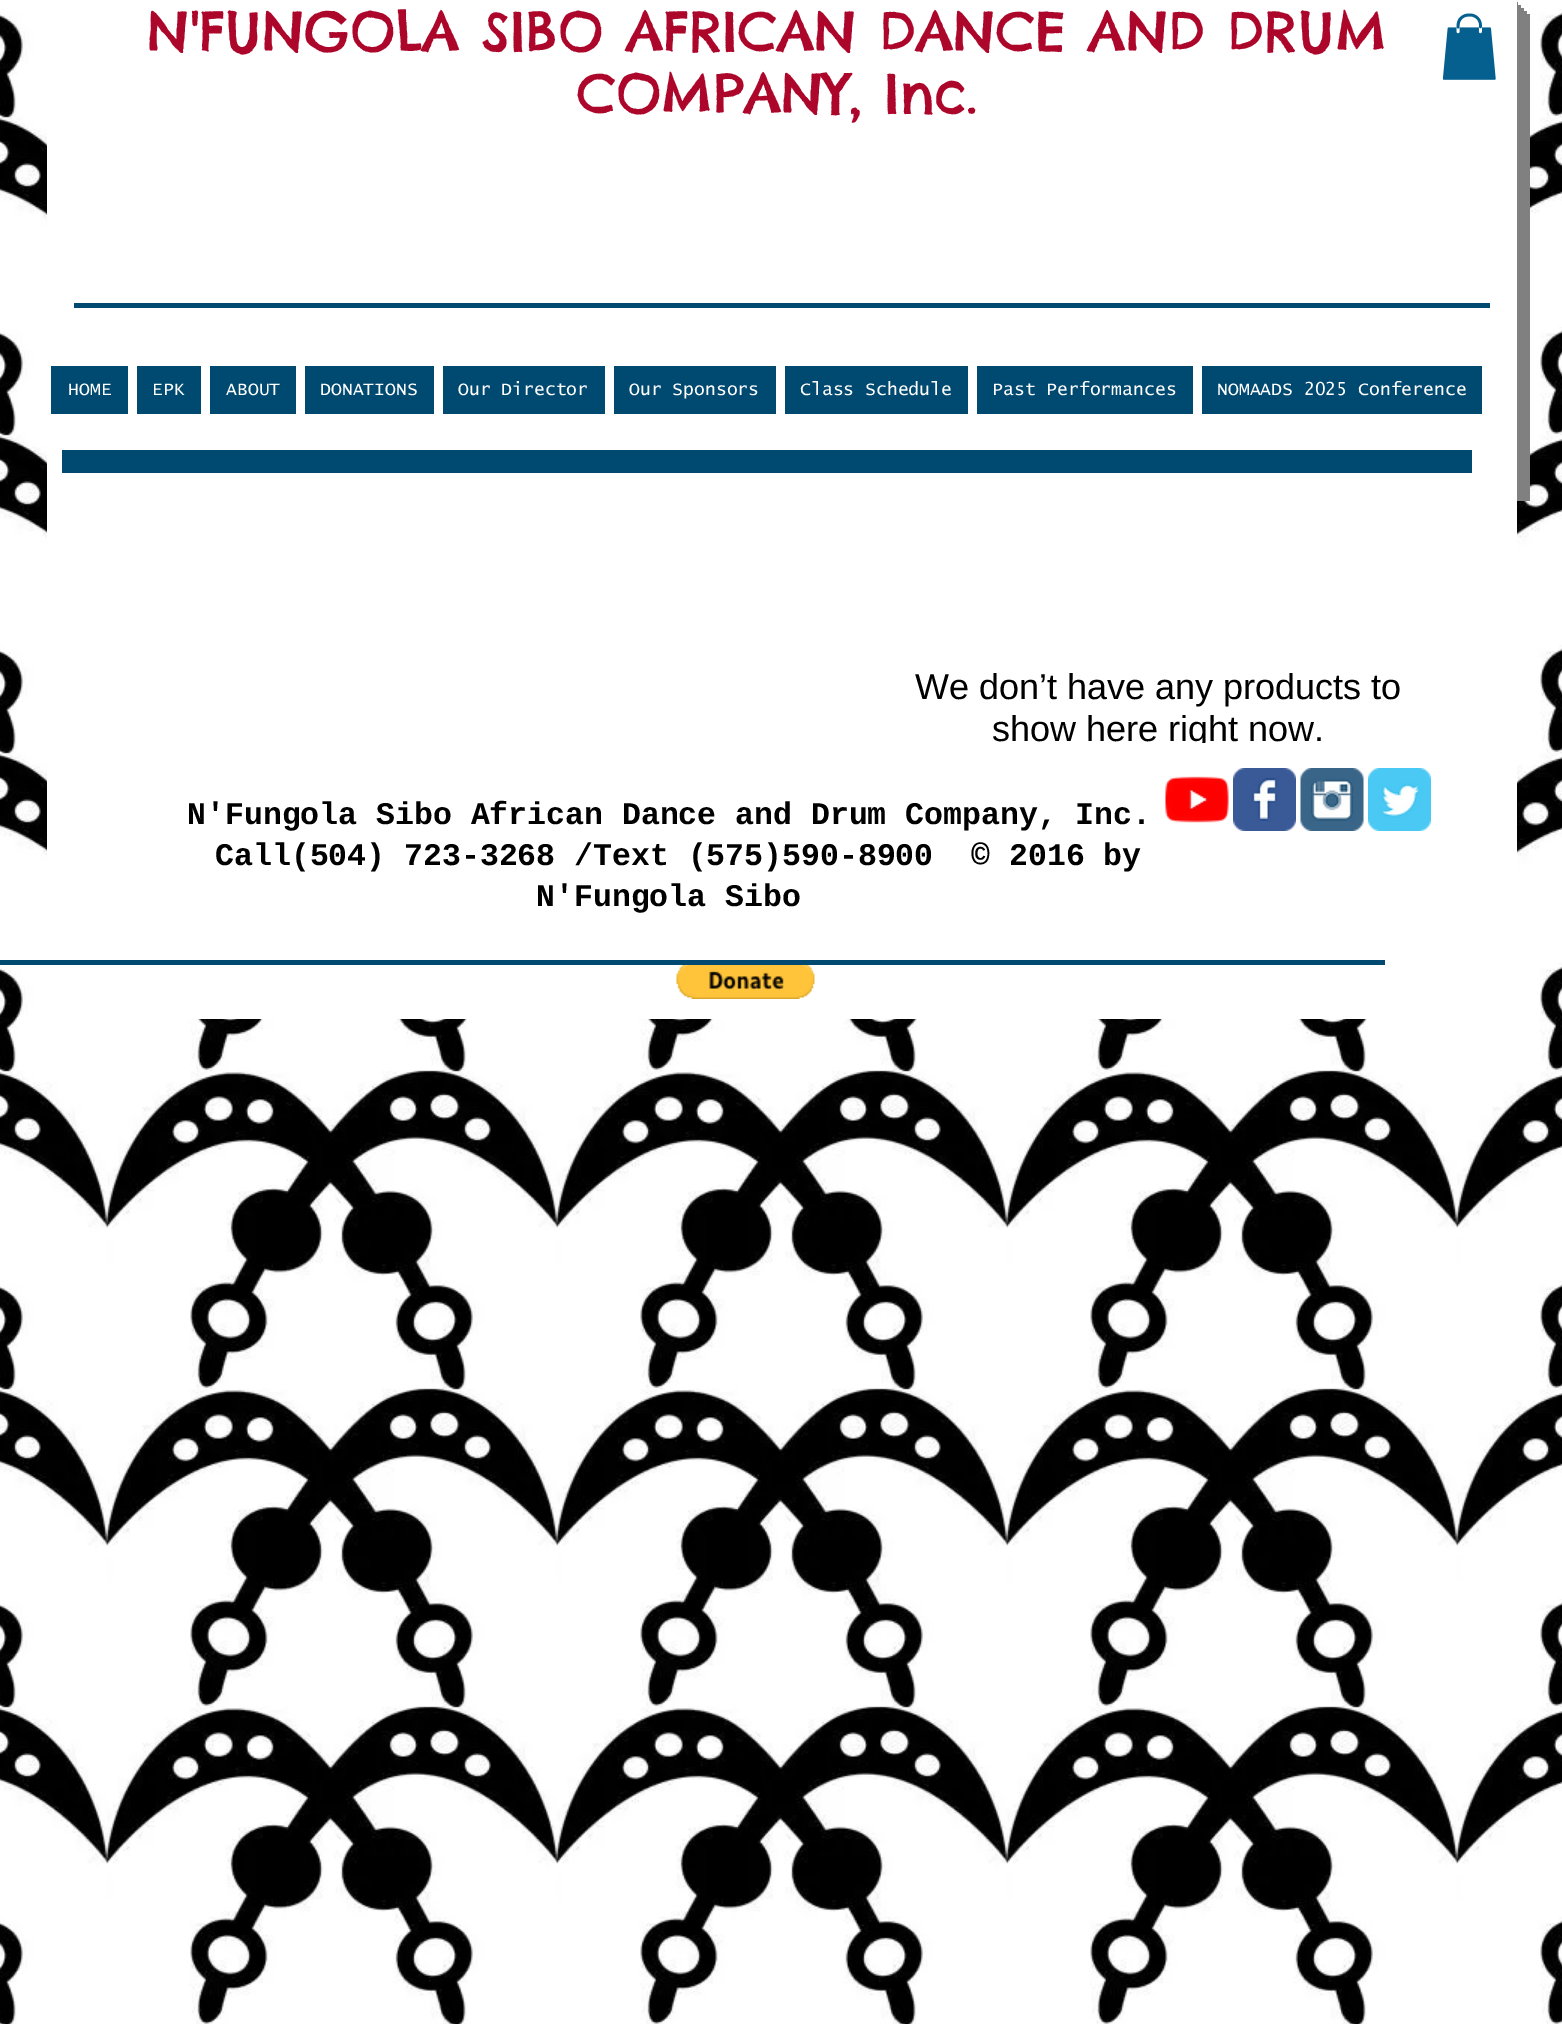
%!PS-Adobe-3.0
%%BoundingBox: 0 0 1562 2024
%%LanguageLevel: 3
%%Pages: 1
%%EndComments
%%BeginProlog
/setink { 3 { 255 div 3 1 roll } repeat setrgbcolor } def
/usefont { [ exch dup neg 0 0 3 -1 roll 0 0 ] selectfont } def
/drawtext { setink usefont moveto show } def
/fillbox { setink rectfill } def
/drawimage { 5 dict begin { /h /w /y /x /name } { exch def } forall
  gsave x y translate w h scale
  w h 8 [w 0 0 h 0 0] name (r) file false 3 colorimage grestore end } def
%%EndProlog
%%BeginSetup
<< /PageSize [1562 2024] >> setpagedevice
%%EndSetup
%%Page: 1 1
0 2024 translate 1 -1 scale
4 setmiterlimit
0 0 1562 2024 255 255 255 fillbox
(assets/img1.rgb) 0 0 1562 2024 drawimage
128 128 128 setink
60 488 moveto 60 501 lineto 1530 501 lineto 1530 14 lineto 1516 14 lineto 1516 488 lineto closepath fill
57 488 moveto 57 498 lineto 1527 498 lineto 1527 11 lineto 1516 11 lineto 1516 488 lineto closepath fill
54 488 moveto 54 495 lineto 1524 495 lineto 1524 8 lineto 1516 8 lineto 1516 488 lineto closepath fill
51 488 moveto 51 492 lineto 1521 492 lineto 1521 5 lineto 1516 5 lineto 1516 488 lineto closepath fill
48 488 moveto 48 489 lineto 1518 489 lineto 1518 2 lineto 1516 2 lineto 1516 488 lineto closepath fill
47 0 1470 743 255 255 255 fillbox
(N'FUNGOLA SIBO AFRICAN DANCE AND DRUM) 147 51 /ChelseaMarket-Regular 54 173 6 43 drawtext
(COMPANY, Inc.) 577 113 /ChelseaMarket-Regular 54 173 6 43 drawtext
(assets/img2.rgb) 1442 13 54 67 drawimage
74 303 1416 5 0 73 112 fillbox
51 366 77 48 0 73 112 fillbox
(HOME) 68 395 /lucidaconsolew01-Regular 18 255 255 255 drawtext
137 366 64 48 0 73 112 fillbox
(EPK) 152 395 /lucidaconsolew01-Regular 18 255 255 255 drawtext
210 366 86 48 0 73 112 fillbox
(ABOUT) 226 395 /lucidaconsolew01-Regular 18 255 255 255 drawtext
305 366 129 48 0 73 112 fillbox
(DONATIONS) 320 395 /lucidaconsolew01-Regular 18 255 255 255 drawtext
443 366 162 48 0 73 112 fillbox
(Our Director) 458 395 /lucidaconsolew01-Regular 18 255 255 255 drawtext
614 366 162 48 0 73 112 fillbox
(Our Sponsors) 629 395 /lucidaconsolew01-Regular 18 255 255 255 drawtext
785 366 183 48 0 73 112 fillbox
(Class Schedule) 800 395 /lucidaconsolew01-Regular 18 255 255 255 drawtext
977 366 216 48 0 73 112 fillbox
(Past Performances) 992 395 /lucidaconsolew01-Regular 18 255 255 255 drawtext
1202 366 280 48 0 73 112 fillbox
(NOMAADS 2025 Conference) 1217 395 /lucidaconsolew01-Regular 18 255 255 255 drawtext
62 450 1410 23 0 73 112 fillbox
(We don’t have any products to) 915 699 /LiberationSans-Regular 36 0 0 0 drawtext
(show here right now.) 992 741 /LiberationSans-Regular 36 0 0 0 drawtext
47 743 1470 276 255 255 255 fillbox
(N'Fungola Sibo African Dance and Drum Company, Inc.) 187 824 /LiberationMono-Bold 31.5 0 0 0 drawtext
(Call\(504\) 723-3268 /Text \(575\)590-8900  © 2016 by) 215 865 /LiberationMono-Bold 31.5 0 0 0 drawtext
(N'Fungola Sibo) 536 906 /LiberationMono-Bold 31.5 0 0 0 drawtext
(assets/img3.rgb) 1165 776 64 47 drawimage
(assets/img4.rgb) 1233 768 63 63 drawimage
(assets/img5.rgb) 1300 768 64 63 drawimage
(assets/img6.rgb) 1368 768 63 63 drawimage
0 960 1385 5 0 73 112 fillbox
(assets/img7.rgb) 676 965 139 34 drawimage
showpage
%%EOF
